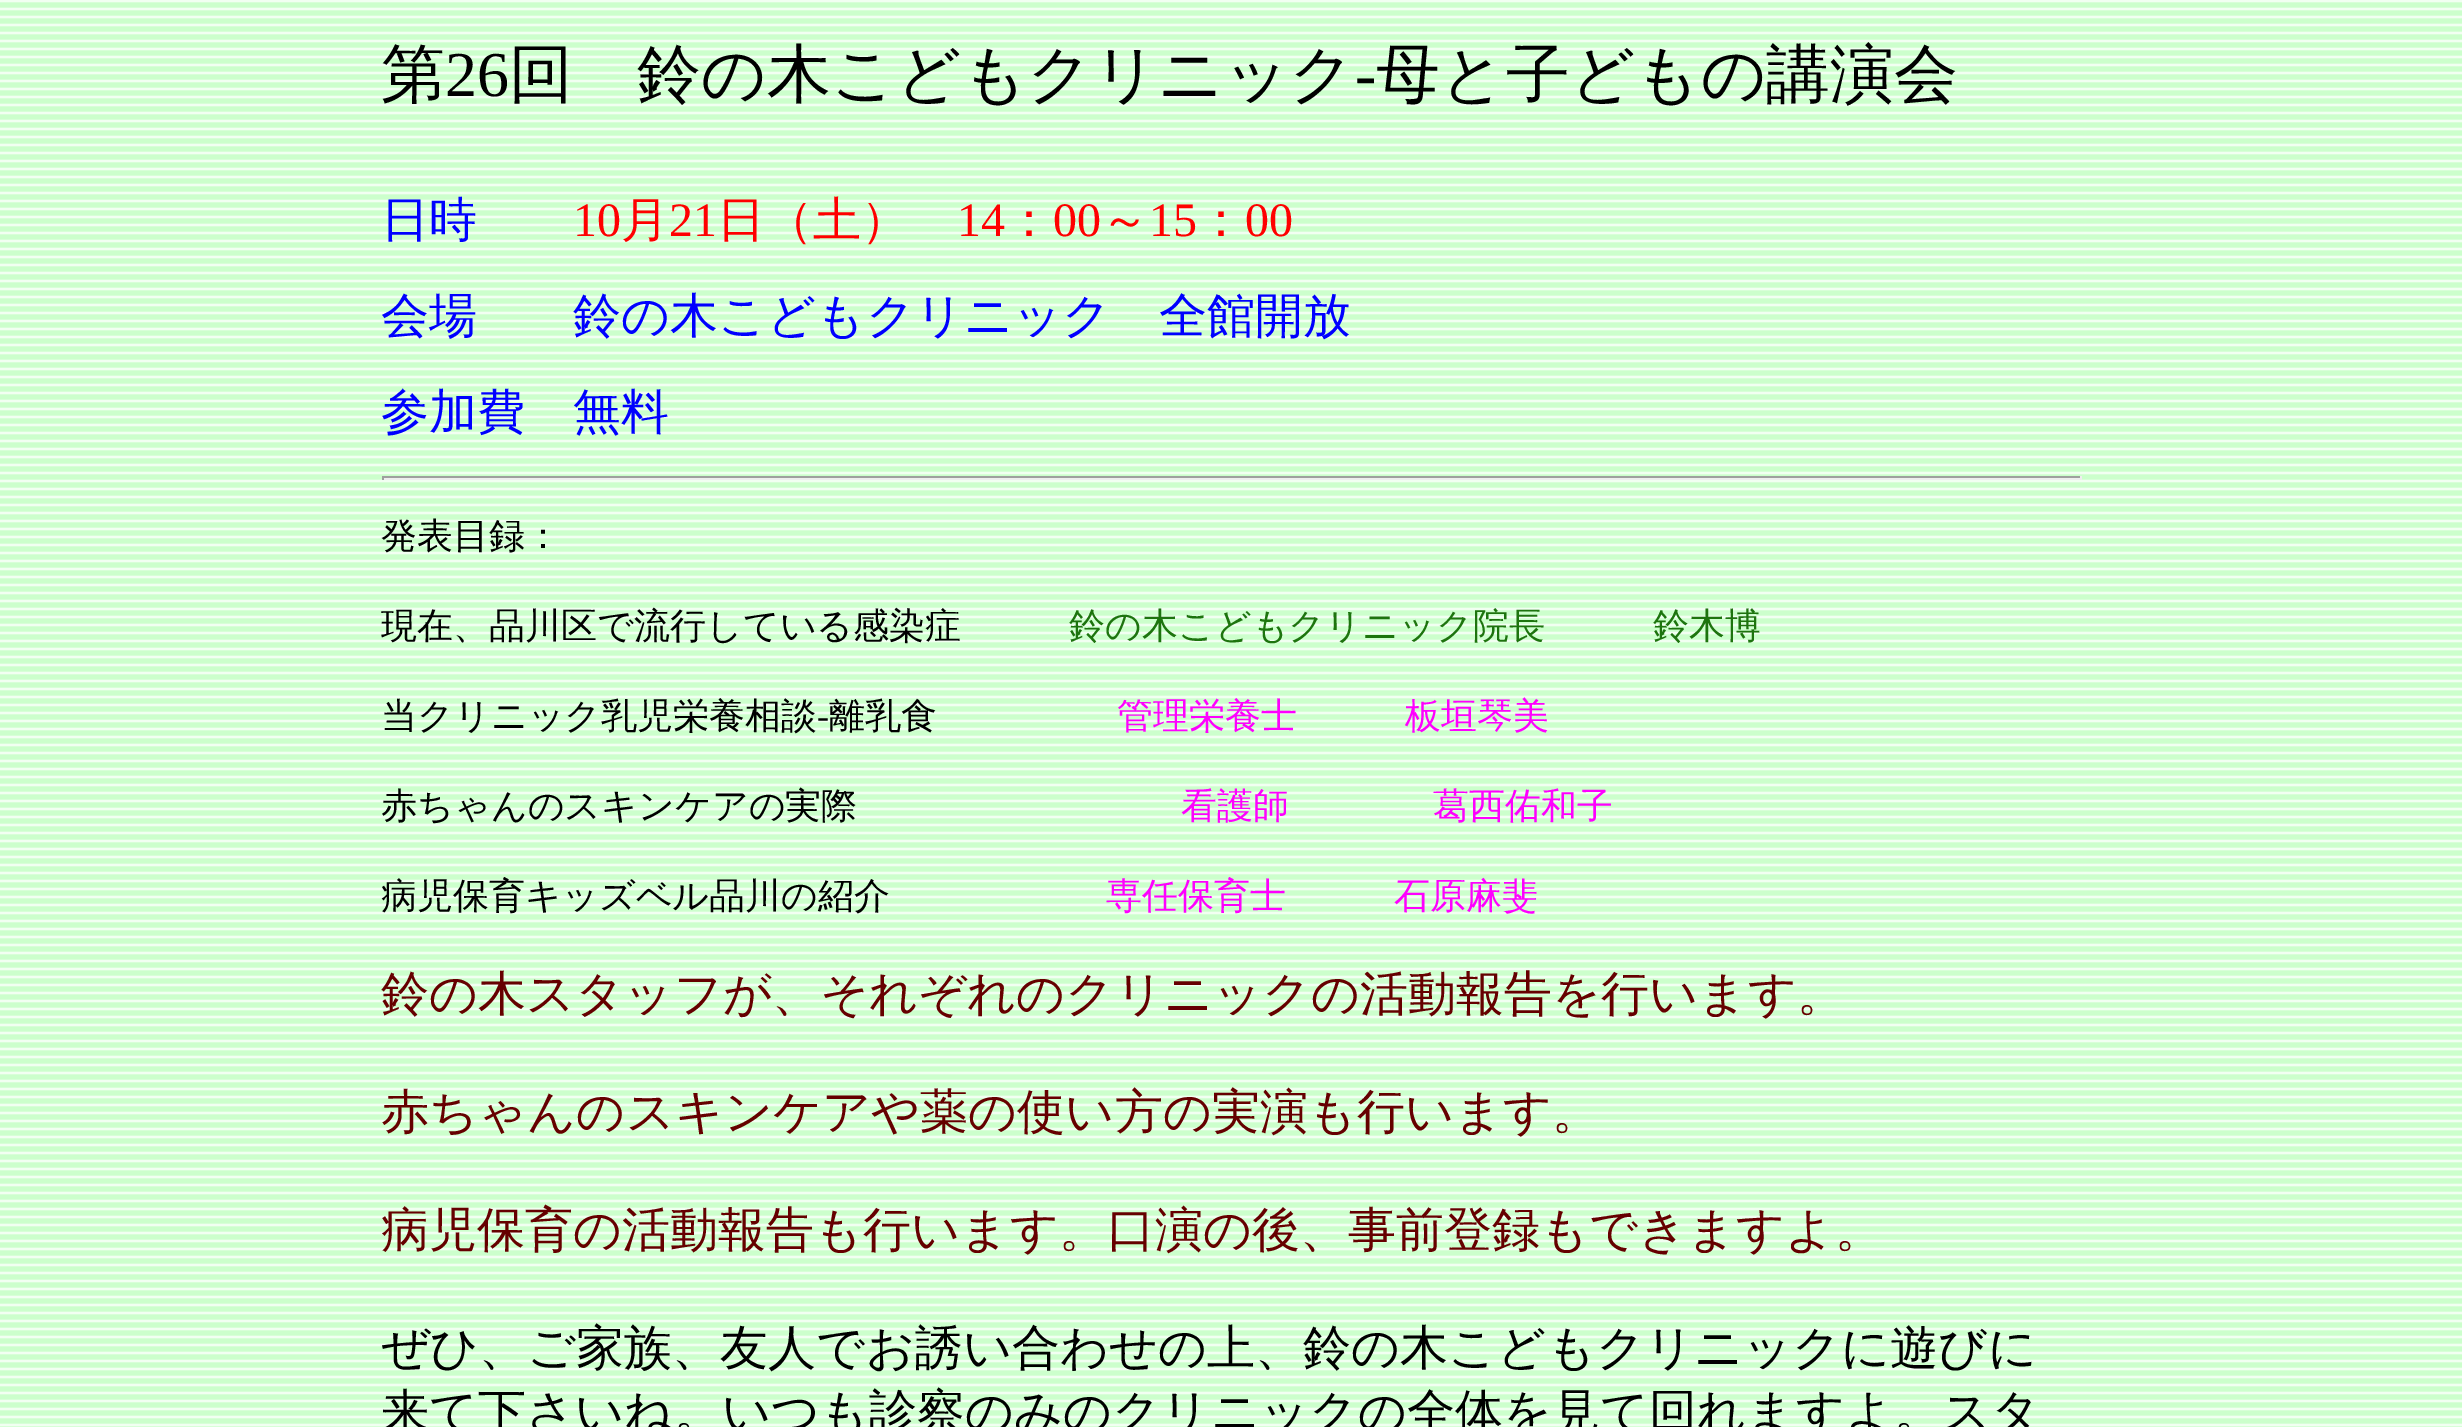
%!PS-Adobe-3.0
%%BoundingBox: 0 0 2462 1427
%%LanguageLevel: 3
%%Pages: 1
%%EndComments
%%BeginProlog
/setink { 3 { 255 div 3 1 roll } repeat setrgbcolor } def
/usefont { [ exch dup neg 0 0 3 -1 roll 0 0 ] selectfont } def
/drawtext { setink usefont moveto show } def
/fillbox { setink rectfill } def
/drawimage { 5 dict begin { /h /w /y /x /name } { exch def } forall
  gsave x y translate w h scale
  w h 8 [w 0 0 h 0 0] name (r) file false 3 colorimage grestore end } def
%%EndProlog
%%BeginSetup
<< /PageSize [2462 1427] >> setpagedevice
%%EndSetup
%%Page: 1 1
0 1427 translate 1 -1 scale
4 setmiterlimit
0 0 2462 1427 255 255 255 fillbox
(assets/img1.rgb) 0 0 2462 1427 drawimage
(第) 381 96 /WenQuanYiZenHei-Medium 64 0 0 0 drawtext
(26) 445 96 /LiberationSerif-Regular 64 0 0 0 drawtext
(回　鈴の木こどもクリニック) 509 96 /WenQuanYiZenHei-Medium 64 0 0 0 drawtext
(-) 1355 96 /LiberationSerif-Regular 64 0 0 0 drawtext
(母と子どもの講演会) 1376 96 /WenQuanYiZenHei-Medium 64 0 0 0 drawtext
(日時) 381 236 /WenQuanYiZenHei-Medium 48 0 0 255 drawtext
(10) 573 236 /LiberationSerif-Regular 48 255 0 0 drawtext
(月) 621 236 /WenQuanYiZenHei-Medium 48 255 0 0 drawtext
(21) 669 236 /LiberationSerif-Regular 48 255 0 0 drawtext
(日（土）) 717 236 /WenQuanYiZenHei-Medium 48 255 0 0 drawtext
(14) 957 236 /LiberationSerif-Regular 48 255 0 0 drawtext
(：) 1005 236 /WenQuanYiZenHei-Medium 48 255 0 0 drawtext
(00) 1053 236 /LiberationSerif-Regular 48 255 0 0 drawtext
(～) 1101 236 /WenQuanYiZenHei-Medium 48 255 0 0 drawtext
(15) 1149 236 /LiberationSerif-Regular 48 255 0 0 drawtext
(：) 1197 236 /WenQuanYiZenHei-Medium 48 255 0 0 drawtext
(00) 1245 236 /LiberationSerif-Regular 48 255 0 0 drawtext
(会場　　鈴の木こどもクリニック　全館開放) 381 332 /WenQuanYiZenHei-Medium 48 0 0 255 drawtext
(参加費　無料) 381 428 /WenQuanYiZenHei-Medium 48 0 0 255 drawtext
382 476 1700 2 159 159 159 fillbox
2080 476 2 4 238 238 238 fillbox
382 478 1700 2 238 238 238 fillbox
382 476 2 4 159 159 159 fillbox
(発表目録：) 381 548 /WenQuanYiZenHei-Medium 36 0 0 0 drawtext
(現在、品川区で流行している感染症) 381 638 /WenQuanYiZenHei-Medium 36 0 0 0 drawtext
(鈴の木こどもクリニック院長　　　鈴木博) 1069 638 /WenQuanYiZenHei-Medium 36 29 116 14 drawtext
(当クリニック乳児栄養相談) 381 728 /WenQuanYiZenHei-Medium 36 0 0 0 drawtext
(-) 817 728 /LiberationSerif-Regular 36 0 0 0 drawtext
(離乳食) 829 728 /WenQuanYiZenHei-Medium 36 0 0 0 drawtext
(管理栄養士　　　板垣琴美) 1117 728 /WenQuanYiZenHei-Medium 36 255 0 255 drawtext
(赤ちゃんのスキンケアの実際) 381 818 /WenQuanYiZenHei-Medium 36 0 0 0 drawtext
(看護師　　　　葛西佑和子) 1181 818 /WenQuanYiZenHei-Medium 36 255 0 255 drawtext
(病児保育キッズベル品川の紹介) 381 908 /WenQuanYiZenHei-Medium 36 0 0 0 drawtext
(専任保育士　　　石原麻斐) 1106 908 /WenQuanYiZenHei-Medium 36 255 0 255 drawtext
(鈴の木スタッフが、それぞれのクリニックの活動報告を行います。) 381 1010 /WenQuanYiZenHei-Medium 48 102 0 0 drawtext
(赤ちゃんのスキンケアや薬の使い方の実演も行います。) 381 1128 /WenQuanYiZenHei-Medium 48 102 0 0 drawtext
(病児保育の活動報告も行います。口演の後、事前登録もできますよ。) 381 1246 /WenQuanYiZenHei-Medium 48 102 0 0 drawtext
(ぜひ、ご家族、友人でお誘い合わせの上、鈴の木こどもクリニックに遊びに) 381 1364 /WenQuanYiZenHei-Medium 48 0 0 0 drawtext
(来て下さいね。いつも診察のみのクリニックの全体を見て回れますよ。スタ) 381 1428 /WenQuanYiZenHei-Medium 48 0 0 0 drawtext
showpage
%%EOF
